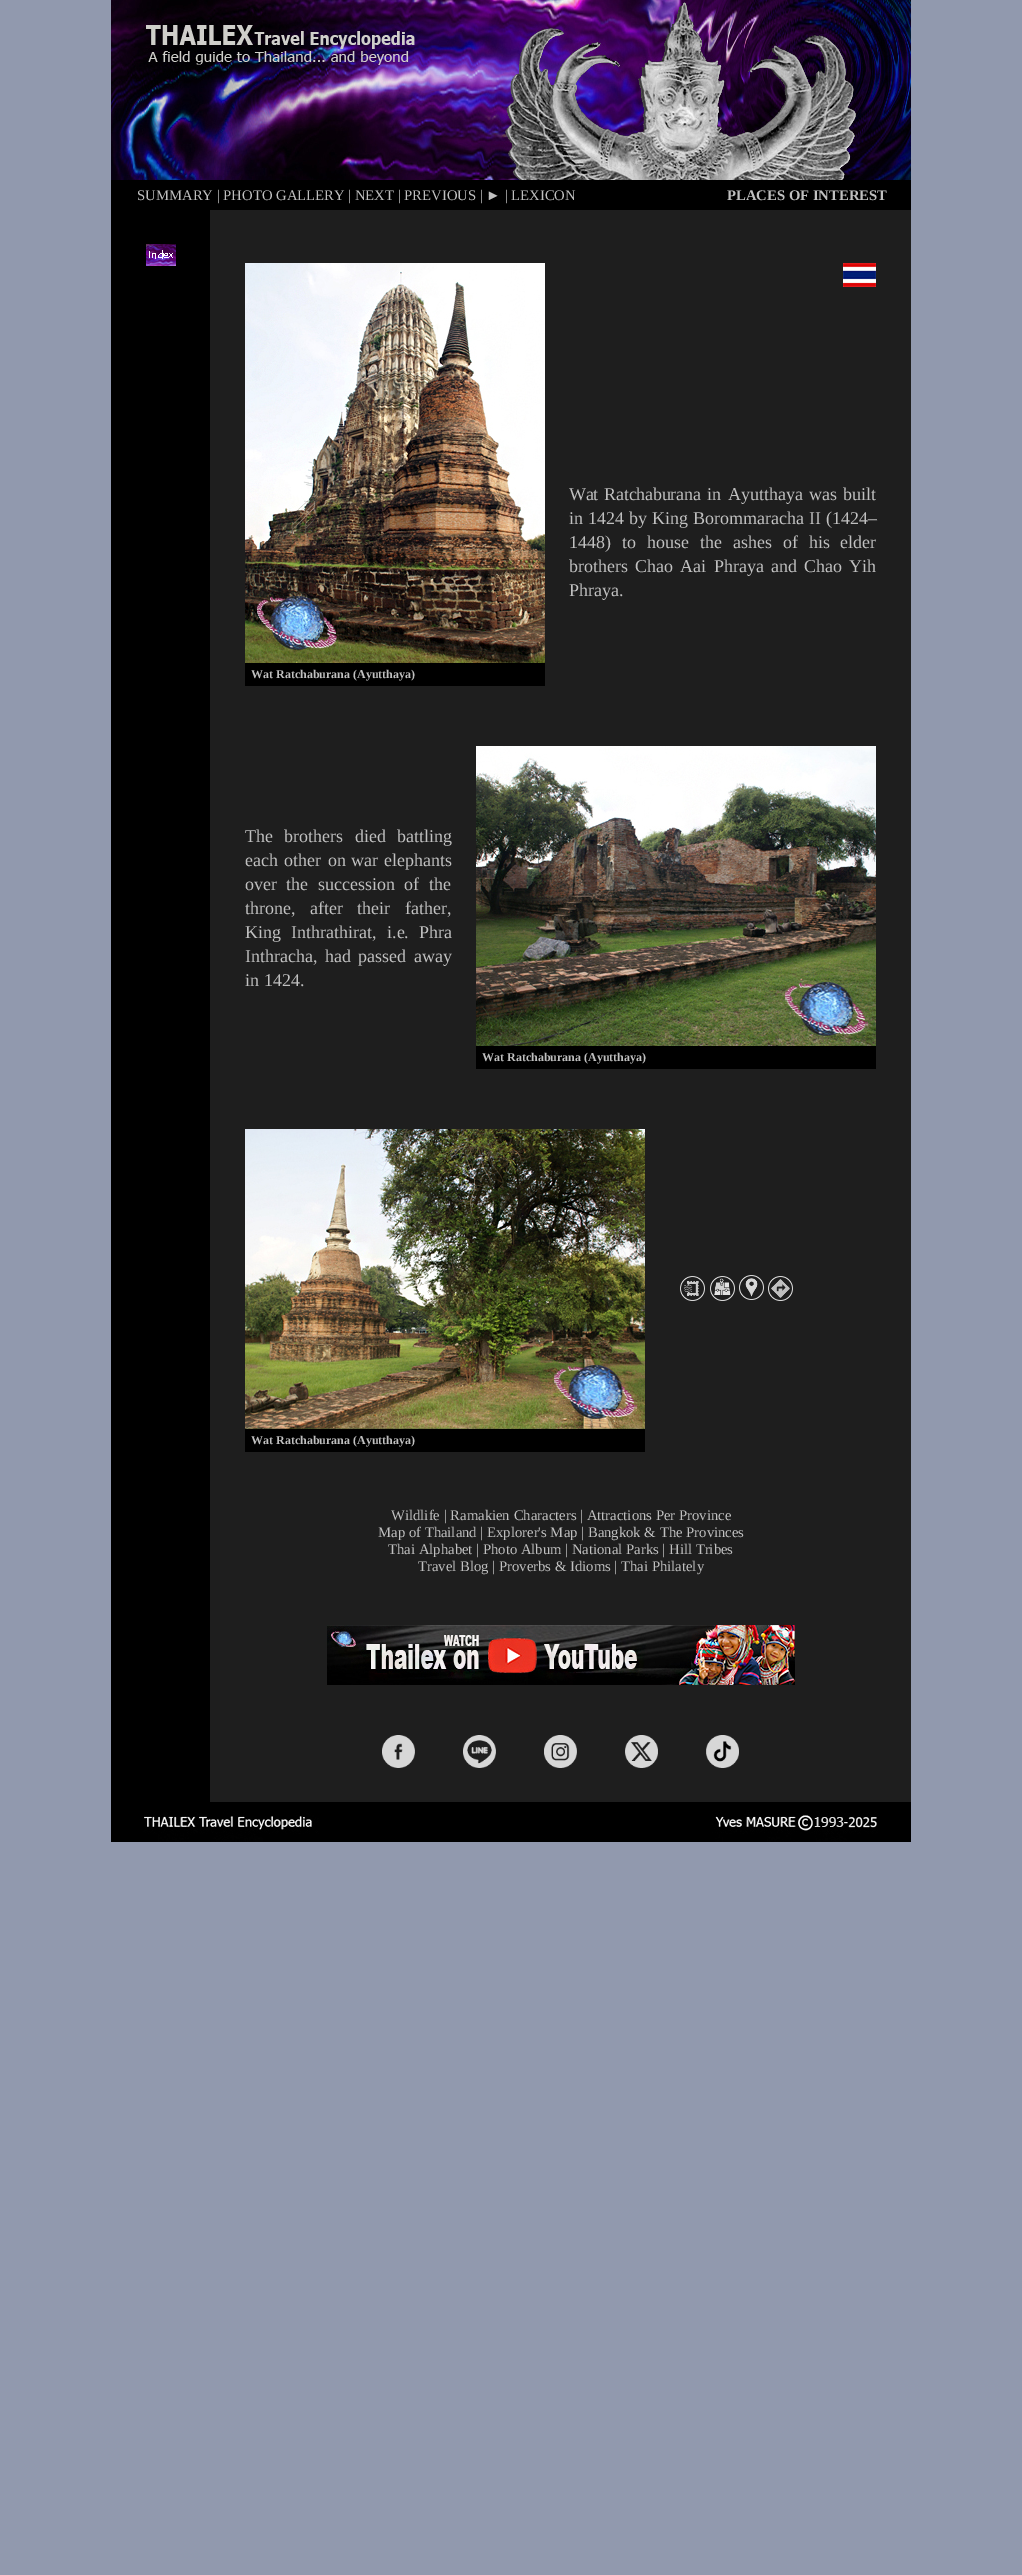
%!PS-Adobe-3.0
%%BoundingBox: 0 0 1022 2575
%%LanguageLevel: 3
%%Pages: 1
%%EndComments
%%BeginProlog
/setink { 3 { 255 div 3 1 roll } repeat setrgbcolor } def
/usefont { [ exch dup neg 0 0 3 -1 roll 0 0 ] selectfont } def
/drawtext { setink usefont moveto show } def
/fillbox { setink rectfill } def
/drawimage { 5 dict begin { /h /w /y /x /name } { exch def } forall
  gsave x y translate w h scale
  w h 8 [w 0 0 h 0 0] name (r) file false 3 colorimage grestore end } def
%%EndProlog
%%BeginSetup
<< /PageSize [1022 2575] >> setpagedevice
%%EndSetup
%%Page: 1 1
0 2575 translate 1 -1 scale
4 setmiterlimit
0 0 1022 2575 145 153 174 fillbox
(assets/img1.rgb) 111 0 800 180 drawimage
111 180 800 30 0 0 0 fillbox
(SUMMARY | PHOTO GALLERY | NEXT | PREVIOUS | ► | LEXICON) 137 200 /LiberationSerif-Regular 14.7 192 192 192 drawtext
(PLACES OF INTEREST) 727 200 /LiberationSerif-Bold 14.7 192 192 192 drawtext
111 210 99 1592 0 0 0 fillbox
(assets/img2.rgb) 146 244 30 22 drawimage
210 210 701 1592 30 30 30 fillbox
/LiberationSerif-Regular 18 usefont
192 192 192 setink
569 500 moveto 2 0 32 -0.25 0 (Wat Ratchaburana) awidthshow
(in) 707 500 /LiberationSerif-Regular 18 192 192 192 drawtext
(Ayutthaya) 728 500 /LiberationSerif-Regular 18 192 192 192 drawtext
809 500 moveto 2 0 32 (was built) widthshow
569 524 moveto 0.5 0 32 (in 1424 by King Borommaracha II \(1424–) widthshow
569 548 moveto 6.5 0 32 (1448\) to house the ashes of his) widthshow
(elder) 840 548 /LiberationSerif-Regular 18 192 192 192 drawtext
569 572 moveto 2.75 0 32 (brothers Chao Aai Phraya and Chao Yih) widthshow
(Phraya.) 569 596 /LiberationSerif-Regular 18 192 192 192 drawtext
(assets/img3.rgb) 843 263 33 24 drawimage
(assets/img4.rgb) 245 263 300 400 drawimage
245 663 300 23 0 0 0 fillbox
(Wat Ratchaburana \(Ayutthaya\)) 251 678 /LiberationSerif-Bold 12 192 192 192 drawtext
/LiberationSerif-Regular 18 usefont
245 842 moveto 7 0 32 (The brothers died) widthshow
(battling) 397 842 /LiberationSerif-Regular 18 192 192 192 drawtext
245 866 moveto 2 0 32 (each other on) widthshow
351 866 moveto 2 0 32 (war elephants) widthshow
245 890 moveto 5 0 32 (over the) widthshow
318 890 moveto 5 0 32 (succession of the) widthshow
245 914 moveto 10 0 32 (throne, after their father,) widthshow
(King) 245 938 /LiberationSerif-Regular 18 192 192 192 drawtext
(Inthrathirat,) 291 938 /LiberationSerif-Regular 18 192 192 192 drawtext
(i.e.) 387 938 /LiberationSerif-Regular 18 192 192 192 drawtext
(Phra) 419 938 /LiberationSerif-Regular 18 192 192 192 drawtext
(Inthracha,) 245 962 /LiberationSerif-Regular 18 192 192 192 drawtext
325 962 moveto 3 0 32 (had passed away) widthshow
(in 1424.) 245 986 /LiberationSerif-Regular 18 192 192 192 drawtext
(assets/img5.rgb) 476 746 400 300 drawimage
476 1046 400 23 0 0 0 fillbox
(Wat Ratchaburana \(Ayutthaya\)) 482 1061 /LiberationSerif-Bold 12 192 192 192 drawtext
(assets/img6.rgb) 680 1276 25 25 drawimage
(assets/img7.rgb) 710 1276 25 25 drawimage
(assets/img8.rgb) 739 1275 25 25 drawimage
(assets/img9.rgb) 768 1276 25 25 drawimage
(assets/img10.rgb) 245 1129 400 300 drawimage
245 1429 400 23 0 0 0 fillbox
(Wat Ratchaburana \(Ayutthaya\)) 251 1444 /LiberationSerif-Bold 12 192 192 192 drawtext
(Wildlife | Ramakien Characters | Attractions Per Province) 391 1520 /LiberationSerif-Regular 14.7 192 192 192 drawtext
(Map of Thailand | Explorer's Map | Bangkok & The Provinces) 378 1537 /LiberationSerif-Regular 14.7 192 192 192 drawtext
(Thai Alphabet | Photo Album | National Parks | Hill Tribes) 388 1554 /LiberationSerif-Regular 14.7 192 192 192 drawtext
(Travel Blog | Proverbs & Idioms | Thai Philately) 418 1571 /LiberationSerif-Regular 14.7 192 192 192 drawtext
(assets/img11.rgb) 327 1625 468 60 drawimage
(assets/img12.rgb) 382 1735 33 33 drawimage
(assets/img13.rgb) 463 1735 33 33 drawimage
(assets/img14.rgb) 544 1735 33 33 drawimage
(assets/img15.rgb) 625 1735 33 33 drawimage
(assets/img16.rgb) 706 1735 33 33 drawimage
(assets/img17.rgb) 111 1802 800 40 drawimage
showpage
%%EOF
